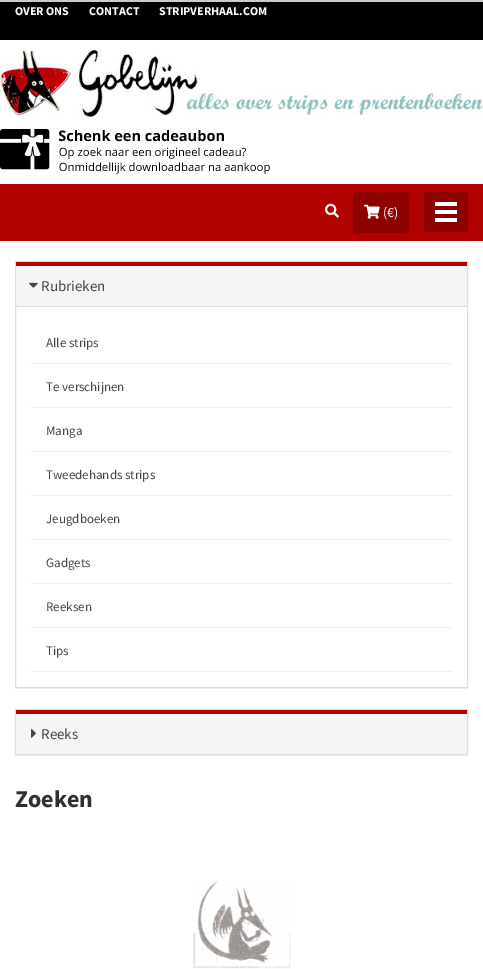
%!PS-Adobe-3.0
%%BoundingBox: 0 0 483 969
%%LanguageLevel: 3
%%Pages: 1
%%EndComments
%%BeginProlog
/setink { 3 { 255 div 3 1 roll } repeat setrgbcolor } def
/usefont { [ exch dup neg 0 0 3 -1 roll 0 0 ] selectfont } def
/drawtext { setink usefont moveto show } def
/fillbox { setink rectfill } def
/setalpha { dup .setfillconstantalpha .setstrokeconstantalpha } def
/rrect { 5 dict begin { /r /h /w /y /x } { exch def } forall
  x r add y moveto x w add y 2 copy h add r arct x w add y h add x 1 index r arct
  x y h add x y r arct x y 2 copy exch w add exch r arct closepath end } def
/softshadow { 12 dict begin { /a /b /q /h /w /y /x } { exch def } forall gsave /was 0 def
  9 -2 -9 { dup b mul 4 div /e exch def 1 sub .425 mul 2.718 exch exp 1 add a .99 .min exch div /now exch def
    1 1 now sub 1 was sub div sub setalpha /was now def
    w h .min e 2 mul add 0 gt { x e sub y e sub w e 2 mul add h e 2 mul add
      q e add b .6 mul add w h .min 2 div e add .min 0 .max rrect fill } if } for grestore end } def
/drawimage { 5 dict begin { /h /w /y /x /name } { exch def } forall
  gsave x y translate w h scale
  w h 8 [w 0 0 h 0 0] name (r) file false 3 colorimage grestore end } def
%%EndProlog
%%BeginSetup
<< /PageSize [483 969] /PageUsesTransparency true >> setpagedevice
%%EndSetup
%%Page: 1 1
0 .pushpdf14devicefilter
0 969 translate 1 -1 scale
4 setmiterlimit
0 0 483 969 255 255 255 fillbox
0 0 483 2 204 204 204 fillbox
0 184 483 57 176 1 0 fillbox
0 2 483 38 0 0 0 fillbox
(OVER ONS) 15 15 /SourceSansPro-Bold 12 255 255 255 drawtext
(CONTACT) 89 15 /SourceSansPro-Bold 12 255 255 255 drawtext
(STRIPVERHAAL.COM) 159 15 /SourceSansPro-Bold 12 255 255 255 drawtext
(assets/img1.rgb) 0 50 483 67 drawimage
(assets/img2.rgb) 0 129 270 45 drawimage
(assets/img3.rgb) 325 203 14 15 drawimage
141 1 0 setink
353 192 56 41 4 rrect fill
(assets/img4.rgb) 364 204 16 15 drawimage
(\(€\)) 383 217 /SourceSansPro-Regular 14 255 255 255 drawtext
141 1 0 setink
424 192 44 40 4 rrect fill
255 255 255 setink
435 202 22 4 1 rrect fill
435 210 22 4 1 rrect fill
435 218 22 4 1 rrect fill
gsave
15 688 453 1 rectclip
0 0 0 setink
15 262 453 427 0 0.5 0.05 softshadow
grestore
221 221 221 setink
15.5 261.5 452 426 rectstroke
16 266 451 40 245 245 245 fillbox
16 262 451 4 176 1 0 fillbox
(assets/img5.rgb) 29 282 9 6 drawimage
(Rubrieken) 41 291 /SourceSansPro-Regular 15 69 69 69 drawtext
16 306 451 1 221 221 221 fillbox
31 363 421 1 238 238 238 fillbox
(Alle strips) 46 347 /SourceSansPro-Regular 13 69 69 69 drawtext
31 407 421 1 238 238 238 fillbox
(Te verschijnen) 46 391 /SourceSansPro-Regular 13 69 69 69 drawtext
31 451 421 1 238 238 238 fillbox
(Manga) 46 435 /SourceSansPro-Regular 13 69 69 69 drawtext
31 495 421 1 238 238 238 fillbox
(Tweedehands strips) 46 479 /SourceSansPro-Regular 13 69 69 69 drawtext
31 539 421 1 238 238 238 fillbox
(Jeugdboeken) 46 523 /SourceSansPro-Regular 13 69 69 69 drawtext
31 583 421 1 238 238 238 fillbox
(Gadgets) 46 567 /SourceSansPro-Regular 13 69 69 69 drawtext
31 627 421 1 238 238 238 fillbox
(Reeksen) 46 611 /SourceSansPro-Regular 13 69 69 69 drawtext
31 671 421 1 238 238 238 fillbox
(Tips) 46 655 /SourceSansPro-Regular 13 69 69 69 drawtext
0 0 0 setink
15 710 453 46 0 0.5 0.05 softshadow
221 221 221 setink
15.5 709.5 452 45 rectstroke
16 714 451 40 245 245 245 fillbox
16 710 451 4 176 1 0 fillbox
(assets/img6.rgb) 31 729 5 9 drawimage
(Reeks) 41 739 /SourceSansPro-Regular 15 69 69 69 drawtext
(Zoeken) 15 807 /SourceSansPro-Bold 24 48 48 48 drawtext
(assets/img7.rgb) 192 880 99 89 drawimage
.poppdf14devicefilter showpage
%%EOF
